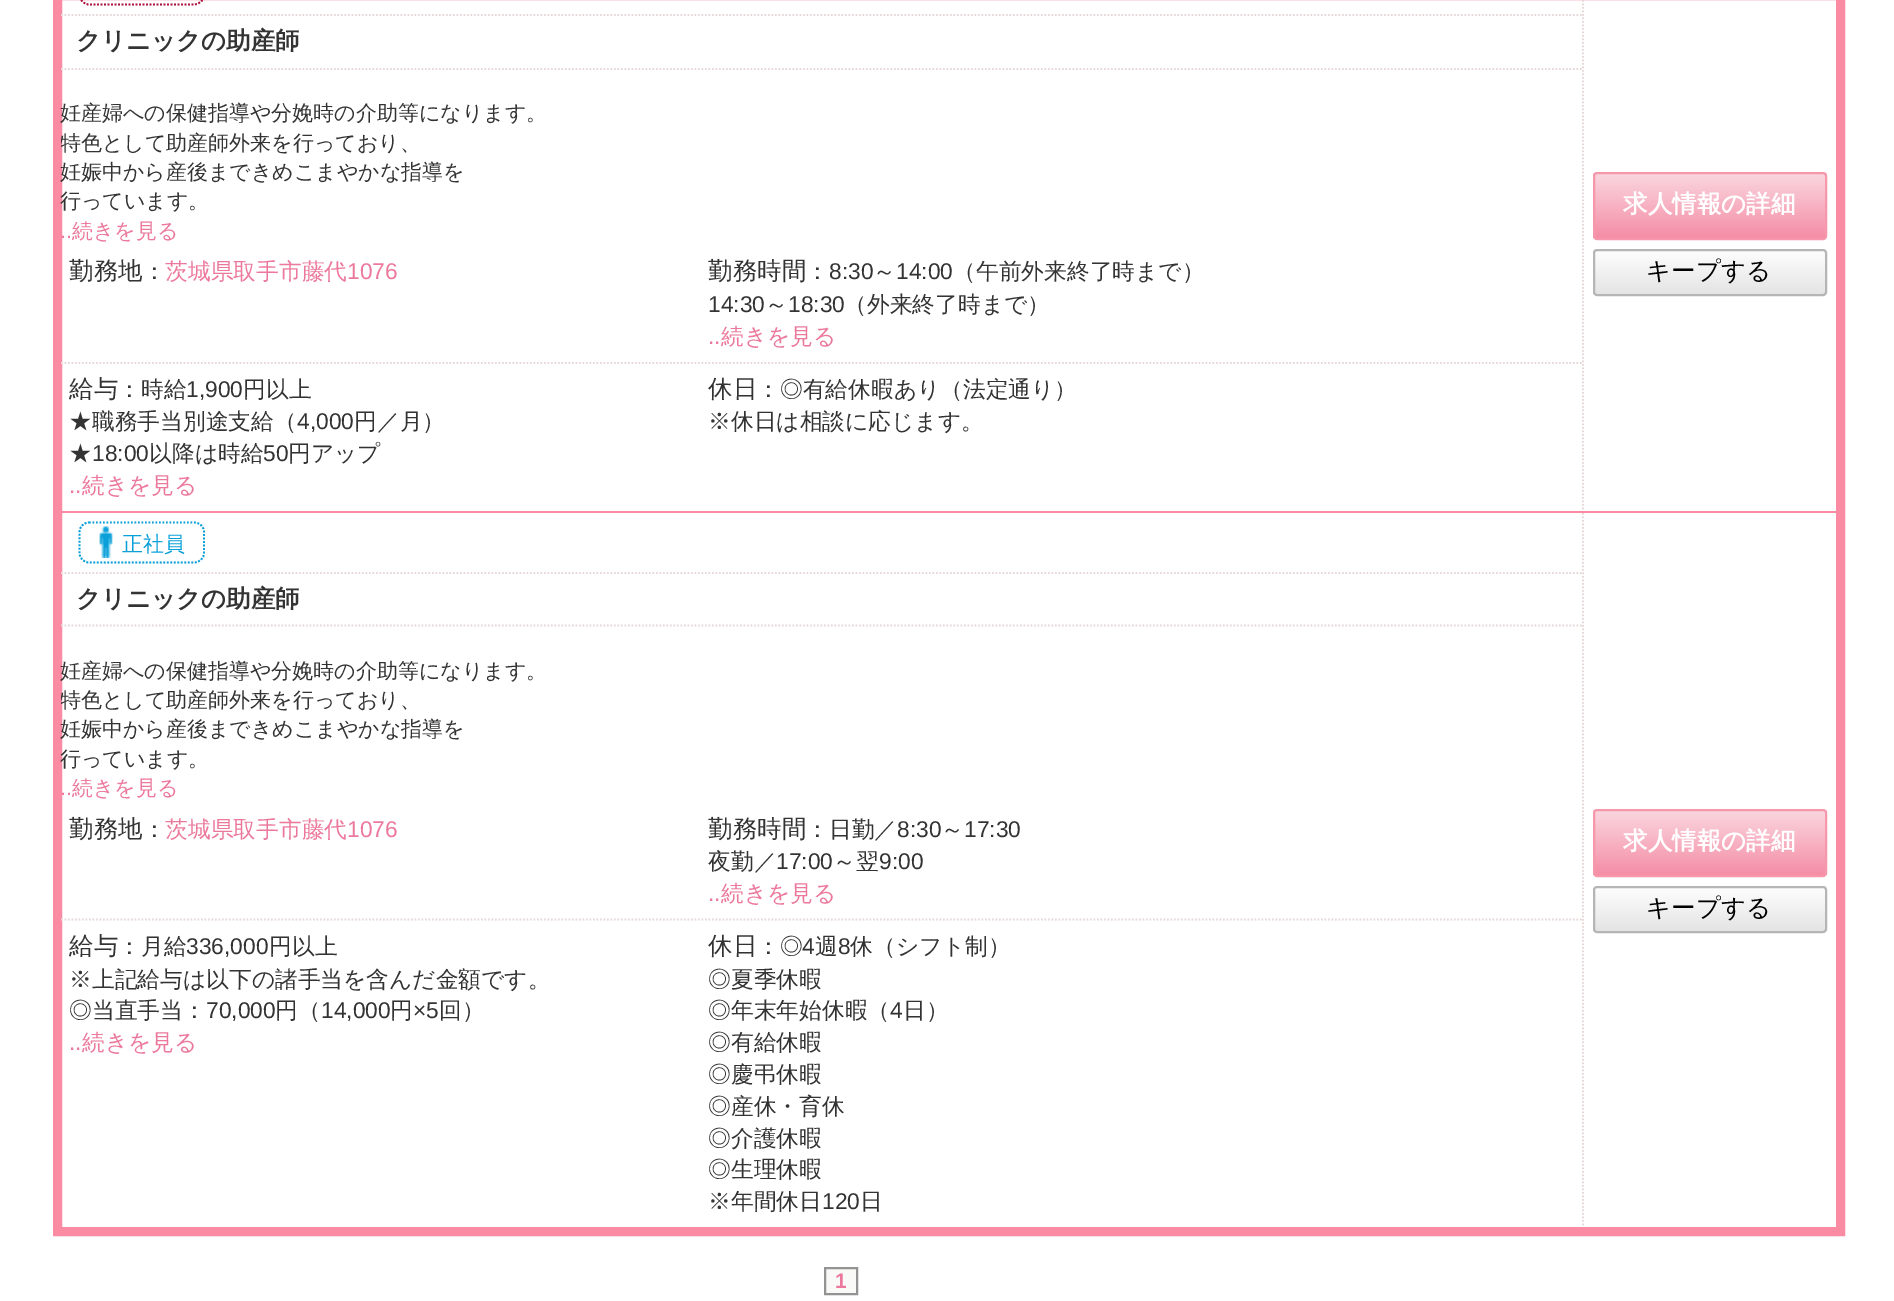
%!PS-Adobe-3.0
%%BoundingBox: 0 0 1894 1301
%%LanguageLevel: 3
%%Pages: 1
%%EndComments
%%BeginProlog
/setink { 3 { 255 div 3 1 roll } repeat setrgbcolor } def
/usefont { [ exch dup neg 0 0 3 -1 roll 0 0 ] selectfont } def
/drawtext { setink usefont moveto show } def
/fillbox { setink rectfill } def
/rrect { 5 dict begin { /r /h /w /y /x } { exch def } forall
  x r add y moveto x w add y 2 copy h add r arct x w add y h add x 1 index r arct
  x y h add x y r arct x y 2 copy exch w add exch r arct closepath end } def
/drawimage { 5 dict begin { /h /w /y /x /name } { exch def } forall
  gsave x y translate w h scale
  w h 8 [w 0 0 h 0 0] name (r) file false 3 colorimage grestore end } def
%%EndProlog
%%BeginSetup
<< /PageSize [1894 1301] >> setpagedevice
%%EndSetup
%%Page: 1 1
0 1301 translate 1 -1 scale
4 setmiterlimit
0 0 1894 1301 255 255 255 fillbox
251 139 163 setink
9 setlinewidth
57.5 -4.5 1783 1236 rectstroke
231 217 217 setink
1.8 setlinewidth
[1.75 1.75] 0 setdash
1583 -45.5 moveto 1583 511 lineto stroke
61 15 moveto 1582 15 lineto stroke
173 20 63 setink
89 -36 moveto 194 -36 lineto 199.5 -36 204 -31.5 204 -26 curveto 204 -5 lineto 204 0 199.5 4.5 194 4.5 curveto 89 4.5 lineto 84 4.5 79.5 0 79.5 -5 curveto 79.5 -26 lineto 79.5 -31.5 84 -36 89 -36 curveto closepath stroke
231 217 217 setink
61 69 moveto 1582 69 lineto stroke
(クリニックの助産師) 76 49 /WenQuanYiZenHei-Bold 24.5 51 51 51 drawtext
(妊産婦への保健指導や分娩時の介助等になります。) 60 120 /WenQuanYiZenHei-Medium 21 51 51 51 drawtext
gsave
61 0 1775 511 rectclip
(特色として助産師外来を行っており、) 60 150 /WenQuanYiZenHei-Medium 21 51 51 51 drawtext
grestore
(妊娠中から産後まできめこまやかな指導を) 60 179 /WenQuanYiZenHei-Medium 21 51 51 51 drawtext
(行っています。) 60 208 /WenQuanYiZenHei-Medium 21 51 51 51 drawtext
(..) 60 238 /LiberationSans-Regular 21 236 121 157 drawtext
(続きを見る) 72 238 /WenQuanYiZenHei-Medium 21 236 121 157 drawtext
231 217 217 setink
61 363 moveto 1582 363 lineto stroke
(勤務地) 69 279 /WenQuanYiZenHei-Medium 24.5 51 51 51 drawtext
(：) 143 279 /WenQuanYiZenHei-Medium 22.75 51 51 51 drawtext
(茨城県取手市藤代) 165 279 /WenQuanYiZenHei-Medium 22.75 236 121 157 drawtext
(1076) 347 279 /LiberationSans-Regular 22.75 236 121 157 drawtext
(勤務時間) 708 279 /WenQuanYiZenHei-Medium 24.5 51 51 51 drawtext
(：) 806 279 /WenQuanYiZenHei-Medium 22.75 51 51 51 drawtext
(8:30) 829 279 /LiberationSans-Regular 22.75 51 51 51 drawtext
(～) 873 279 /WenQuanYiZenHei-Medium 22.75 51 51 51 drawtext
(14:00) 896 279 /LiberationSans-Regular 22.75 51 51 51 drawtext
(（午前外来終了時まで）) 953 279 /WenQuanYiZenHei-Medium 22.75 51 51 51 drawtext
(14:30) 708 312 /LiberationSans-Regular 22.75 51 51 51 drawtext
(～) 765 312 /WenQuanYiZenHei-Medium 22.75 51 51 51 drawtext
(18:30) 788 312 /LiberationSans-Regular 22.75 51 51 51 drawtext
(（外来終了時まで）) 844 312 /WenQuanYiZenHei-Medium 22.75 51 51 51 drawtext
(..) 708 344 /LiberationSans-Regular 22.75 236 121 157 drawtext
(続きを見る) 721 344 /WenQuanYiZenHei-Medium 22.75 236 121 157 drawtext
(給与) 69 397 /WenQuanYiZenHei-Medium 24.5 51 51 51 drawtext
(：時給) 118 397 /WenQuanYiZenHei-Medium 22.75 51 51 51 drawtext
(1,900) 186 397 /LiberationSans-Regular 22.75 51 51 51 drawtext
(円以上) 243 397 /WenQuanYiZenHei-Medium 22.75 51 51 51 drawtext
(★職務手当別途支給（) 69 429 /WenQuanYiZenHei-Medium 22.75 51 51 51 drawtext
(4,000) 297 429 /LiberationSans-Regular 22.75 51 51 51 drawtext
(円／月）) 354 429 /WenQuanYiZenHei-Medium 22.75 51 51 51 drawtext
(★) 69 461 /WenQuanYiZenHei-Medium 22.75 51 51 51 drawtext
(18:00) 92 461 /LiberationSans-Regular 22.75 51 51 51 drawtext
(以降は時給) 149 461 /WenQuanYiZenHei-Medium 22.75 51 51 51 drawtext
(50) 263 461 /LiberationSans-Regular 22.75 51 51 51 drawtext
(円アップ) 288 461 /WenQuanYiZenHei-Medium 22.75 51 51 51 drawtext
(..) 69 493 /LiberationSans-Regular 22.75 236 121 157 drawtext
(続きを見る) 82 493 /WenQuanYiZenHei-Medium 22.75 236 121 157 drawtext
(休日) 708 397 /WenQuanYiZenHei-Medium 24.5 51 51 51 drawtext
(：◎有給休暇あり（法定通り）) 757 397 /WenQuanYiZenHei-Medium 22.75 51 51 51 drawtext
(※休日は相談に応じます。) 708 429 /WenQuanYiZenHei-Medium 22.75 51 51 51 drawtext
gsave
1593 172 234 68 4 rrect clip newpath
gsave 1593 173 moveto 1827 173 lineto 1827 238 lineto 1593 238 lineto closepath clip newpath
<< /ShadingType 2 /ColorSpace /DeviceRGB /Coords [1710 173 1710 238] /Extend [true true] /Function << /FunctionType 2 /Domain [0 1] /C0 [0.98 0.843 0.875] /C1 [0.961 0.553 0.651] /N 1 >> >> shfill grestore
grestore
246 151 172 setink
2 setlinewidth
[] 0 setdash
1594 173 232 66 3 rrect stroke
(求人情報の詳細) 1623 212 /WenQuanYiZenHei-Bold 24.5 255 255 255 drawtext
gsave
1593 249 234 47 4 rrect clip newpath
gsave 1593 250 moveto 1827 250 lineto 1827 294 lineto 1593 294 lineto closepath clip newpath
<< /ShadingType 2 /ColorSpace /DeviceRGB /Coords [1710 250 1710 294] /Extend [true true] /Function << /FunctionType 2 /Domain [0 1] /C0 [0.996 0.996 0.996] /C1 [0.894 0.894 0.894] /N 1 >> >> shfill grestore
grestore
181 181 181 setink
1594 250 232 45 3 rrect stroke
(キープする) 1646 279 /WenQuanYiZenHei-Medium 24.5 0 0 0 drawtext
61 511 1775 2 251 139 163 fillbox
231 217 217 setink
1.8 setlinewidth
[1.75 1.75] 0 setdash
1583 513 moveto 1583 1227 lineto stroke
61 573 moveto 1582 573 lineto stroke
9 160 217 setink
89 522.5 moveto 194 522.5 lineto 199.5 522.5 204 526.5 204 532 curveto 204 553 lineto 204 558.5 199.5 562.5 194 562.5 curveto 89 562.5 lineto 84 562.5 79.5 558.5 79.5 553 curveto 79.5 532 lineto 79.5 526.5 84 522.5 89 522.5 curveto closepath stroke
(assets/img1.rgb) 99 526 14 32 drawimage
(正社員) 122 551 /WenQuanYiZenHei-Medium 21 9 160 217 drawtext
231 217 217 setink
61 625.5 moveto 1582 625.5 lineto stroke
(クリニックの助産師) 76 607 /WenQuanYiZenHei-Bold 24.5 51 51 51 drawtext
(妊産婦への保健指導や分娩時の介助等になります。) 60 678 /WenQuanYiZenHei-Medium 21 51 51 51 drawtext
gsave
61 513 1775 714 rectclip
(特色として助産師外来を行っており、) 60 707 /WenQuanYiZenHei-Medium 21 51 51 51 drawtext
grestore
(妊娠中から産後まできめこまやかな指導を) 60 736 /WenQuanYiZenHei-Medium 21 51 51 51 drawtext
(行っています。) 60 766 /WenQuanYiZenHei-Medium 21 51 51 51 drawtext
(..) 60 795 /LiberationSans-Regular 21 236 121 157 drawtext
(続きを見る) 72 795 /WenQuanYiZenHei-Medium 21 236 121 157 drawtext
231 217 217 setink
61 919.5 moveto 1582 919.5 lineto stroke
(勤務地) 69 837 /WenQuanYiZenHei-Medium 24.5 51 51 51 drawtext
(：) 143 837 /WenQuanYiZenHei-Medium 22.75 51 51 51 drawtext
(茨城県取手市藤代) 165 837 /WenQuanYiZenHei-Medium 22.75 236 121 157 drawtext
(1076) 347 837 /LiberationSans-Regular 22.75 236 121 157 drawtext
(勤務時間) 708 837 /WenQuanYiZenHei-Medium 24.5 51 51 51 drawtext
(：日勤／) 806 837 /WenQuanYiZenHei-Medium 22.75 51 51 51 drawtext
(8:30) 897 837 /LiberationSans-Regular 22.75 51 51 51 drawtext
(～) 941 837 /WenQuanYiZenHei-Medium 22.75 51 51 51 drawtext
(17:30) 964 837 /LiberationSans-Regular 22.75 51 51 51 drawtext
(夜勤／) 708 869 /WenQuanYiZenHei-Medium 22.75 51 51 51 drawtext
(17:00) 776 869 /LiberationSans-Regular 22.75 51 51 51 drawtext
(～翌) 833 869 /WenQuanYiZenHei-Medium 22.75 51 51 51 drawtext
(9:00) 879 869 /LiberationSans-Regular 22.75 51 51 51 drawtext
(..) 708 901 /LiberationSans-Regular 22.75 236 121 157 drawtext
(続きを見る) 721 901 /WenQuanYiZenHei-Medium 22.75 236 121 157 drawtext
(給与) 69 954 /WenQuanYiZenHei-Medium 24.5 51 51 51 drawtext
(：月給) 118 954 /WenQuanYiZenHei-Medium 22.75 51 51 51 drawtext
(336,000) 186 954 /LiberationSans-Regular 22.75 51 51 51 drawtext
(円以上) 269 954 /WenQuanYiZenHei-Medium 22.75 51 51 51 drawtext
(※上記給与は以下の諸手当を含んだ金額です。) 69 987 /WenQuanYiZenHei-Medium 22.75 51 51 51 drawtext
(◎当直手当：) 69 1018 /WenQuanYiZenHei-Medium 22.75 51 51 51 drawtext
(70,000) 206 1018 /LiberationSans-Regular 22.75 51 51 51 drawtext
(円（) 275 1018 /WenQuanYiZenHei-Medium 22.75 51 51 51 drawtext
(14,000) 321 1018 /LiberationSans-Regular 22.75 51 51 51 drawtext
(円) 390 1018 /WenQuanYiZenHei-Medium 22.75 51 51 51 drawtext
(×5) 413 1018 /LiberationSans-Regular 22.75 51 51 51 drawtext
(回）) 439 1018 /WenQuanYiZenHei-Medium 22.75 51 51 51 drawtext
(..) 69 1050 /LiberationSans-Regular 22.75 236 121 157 drawtext
(続きを見る) 82 1050 /WenQuanYiZenHei-Medium 22.75 236 121 157 drawtext
(休日) 708 954 /WenQuanYiZenHei-Medium 24.5 51 51 51 drawtext
(：◎) 757 954 /WenQuanYiZenHei-Medium 22.75 51 51 51 drawtext
(4) 802 954 /LiberationSans-Regular 22.75 51 51 51 drawtext
(週) 815 954 /WenQuanYiZenHei-Medium 22.75 51 51 51 drawtext
(8) 838 954 /LiberationSans-Regular 22.75 51 51 51 drawtext
(休（シフト制）) 850 954 /WenQuanYiZenHei-Medium 22.75 51 51 51 drawtext
(◎夏季休暇) 708 987 /WenQuanYiZenHei-Medium 22.75 51 51 51 drawtext
(◎年末年始休暇（) 708 1018 /WenQuanYiZenHei-Medium 22.75 51 51 51 drawtext
(4) 890 1018 /LiberationSans-Regular 22.75 51 51 51 drawtext
(日）) 903 1018 /WenQuanYiZenHei-Medium 22.75 51 51 51 drawtext
(◎有給休暇) 708 1050 /WenQuanYiZenHei-Medium 22.75 51 51 51 drawtext
(◎慶弔休暇) 708 1082 /WenQuanYiZenHei-Medium 22.75 51 51 51 drawtext
(◎産休・育休) 708 1114 /WenQuanYiZenHei-Medium 22.75 51 51 51 drawtext
(◎介護休暇) 708 1146 /WenQuanYiZenHei-Medium 22.75 51 51 51 drawtext
(◎生理休暇) 708 1177 /WenQuanYiZenHei-Medium 22.75 51 51 51 drawtext
(※年間休日) 708 1209 /WenQuanYiZenHei-Medium 22.75 51 51 51 drawtext
(120) 822 1209 /LiberationSans-Regular 22.75 51 51 51 drawtext
(日) 860 1209 /WenQuanYiZenHei-Medium 22.75 51 51 51 drawtext
gsave
1593 809 234 68 4 rrect clip newpath
gsave 1593 810 moveto 1827 810 lineto 1827 875 lineto 1593 875 lineto closepath clip newpath
<< /ShadingType 2 /ColorSpace /DeviceRGB /Coords [1710 810 1710 875] /Extend [true true] /Function << /FunctionType 2 /Domain [0 1] /C0 [0.98 0.843 0.875] /C1 [0.961 0.553 0.651] /N 1 >> >> shfill grestore
grestore
246 151 172 setink
2 setlinewidth
[] 0 setdash
1594 810 232 66 3 rrect stroke
(求人情報の詳細) 1623 849 /WenQuanYiZenHei-Bold 24.5 255 255 255 drawtext
gsave
1593 886 234 47 4 rrect clip newpath
gsave 1593 887 moveto 1827 887 lineto 1827 931 lineto 1593 931 lineto closepath clip newpath
<< /ShadingType 2 /ColorSpace /DeviceRGB /Coords [1710 887 1710 931] /Extend [true true] /Function << /FunctionType 2 /Domain [0 1] /C0 [0.996 0.996 0.996] /C1 [0.894 0.894 0.894] /N 1 >> >> shfill grestore
grestore
181 181 181 setink
1594 887 232 45 3 rrect stroke
(キープする) 1646 916 /WenQuanYiZenHei-Medium 24.5 0 0 0 drawtext
249 249 247 setink
825 1268 moveto 857 1268 lineto 857 1294 lineto 825 1294 lineto closepath gsave fill grestore
147 147 147 setink
stroke
(1) 835 1288 /LiberationSans-Bold 21 236 121 157 drawtext
showpage
%%EOF
